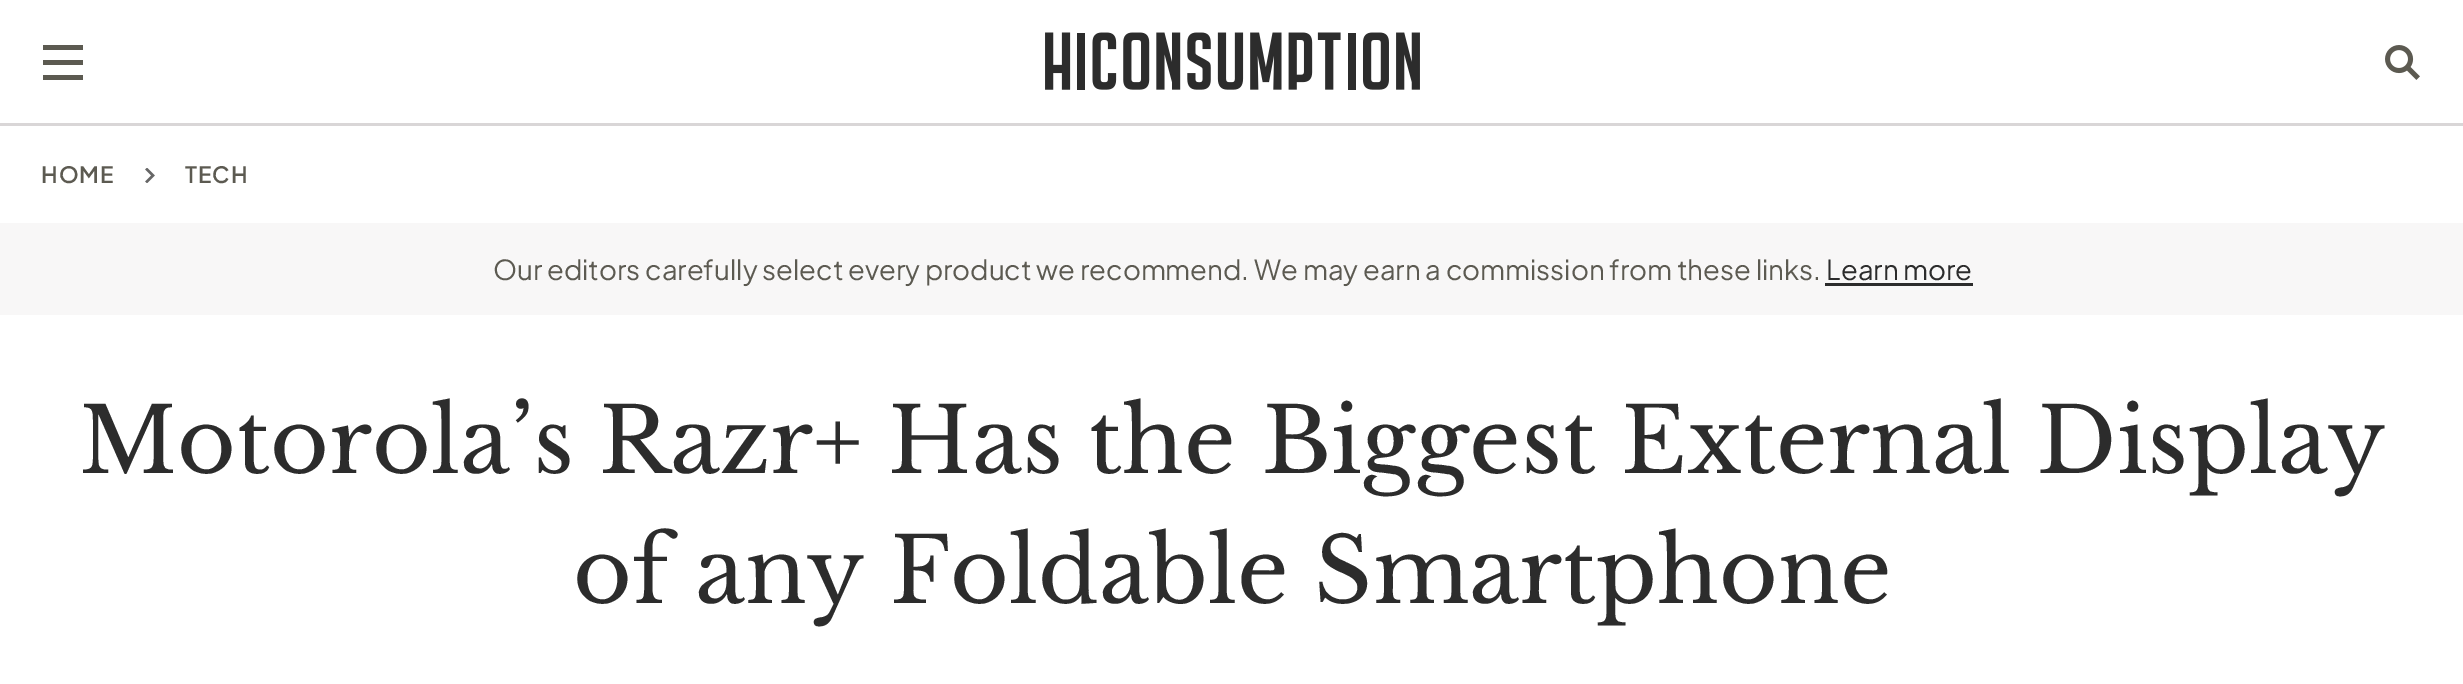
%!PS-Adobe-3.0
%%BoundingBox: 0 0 2463 684
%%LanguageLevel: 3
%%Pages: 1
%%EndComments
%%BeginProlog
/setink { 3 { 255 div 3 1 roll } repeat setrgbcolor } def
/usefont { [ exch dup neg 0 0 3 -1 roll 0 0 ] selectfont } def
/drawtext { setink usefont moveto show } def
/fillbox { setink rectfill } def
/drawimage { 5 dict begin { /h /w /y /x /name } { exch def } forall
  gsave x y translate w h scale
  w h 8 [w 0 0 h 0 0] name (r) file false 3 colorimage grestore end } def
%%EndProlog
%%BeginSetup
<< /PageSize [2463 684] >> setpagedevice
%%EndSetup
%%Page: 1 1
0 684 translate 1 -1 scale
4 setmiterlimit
0 0 2463 684 255 255 255 fillbox
0 123 2463 3 217 214 215 fillbox
43 45 40 5 92 90 81 fillbox
43 75 40 5 92 90 81 fillbox
43 60 40 5 92 90 81 fillbox
(assets/img1.rgb) 1045 32 375 58 drawimage
(assets/img2.rgb) 2385 45 35 35 drawimage
/PlusJakartaSans-SemiBold 22.5 usefont
41 183 moveto 1 0 (HOME) ashow
(assets/img3.rgb) 145 168 10 15 drawimage
185 183 moveto 1 0 (TECH) ashow
0 223 2463 92 248 247 247 fillbox
(Our editors carefully select every product we recommend. We may earn a commission from these links.) 493 280 /PlusJakartaSans-Regular 27.5 92 90 81 drawtext
(Learn more) 1826 280 /PlusJakartaSans-Regular 27.5 44 44 44 drawtext
1825 283 148 3 44 44 44 fillbox
(Motorola’s Razr+ Has the Biggest External Display) 79 473 /LibreBaskerville-Regular 90 44 44 44 drawtext
(of any Foldable Smartphone) 573 603 /LibreBaskerville-Regular 90 44 44 44 drawtext
showpage
%%EOF
